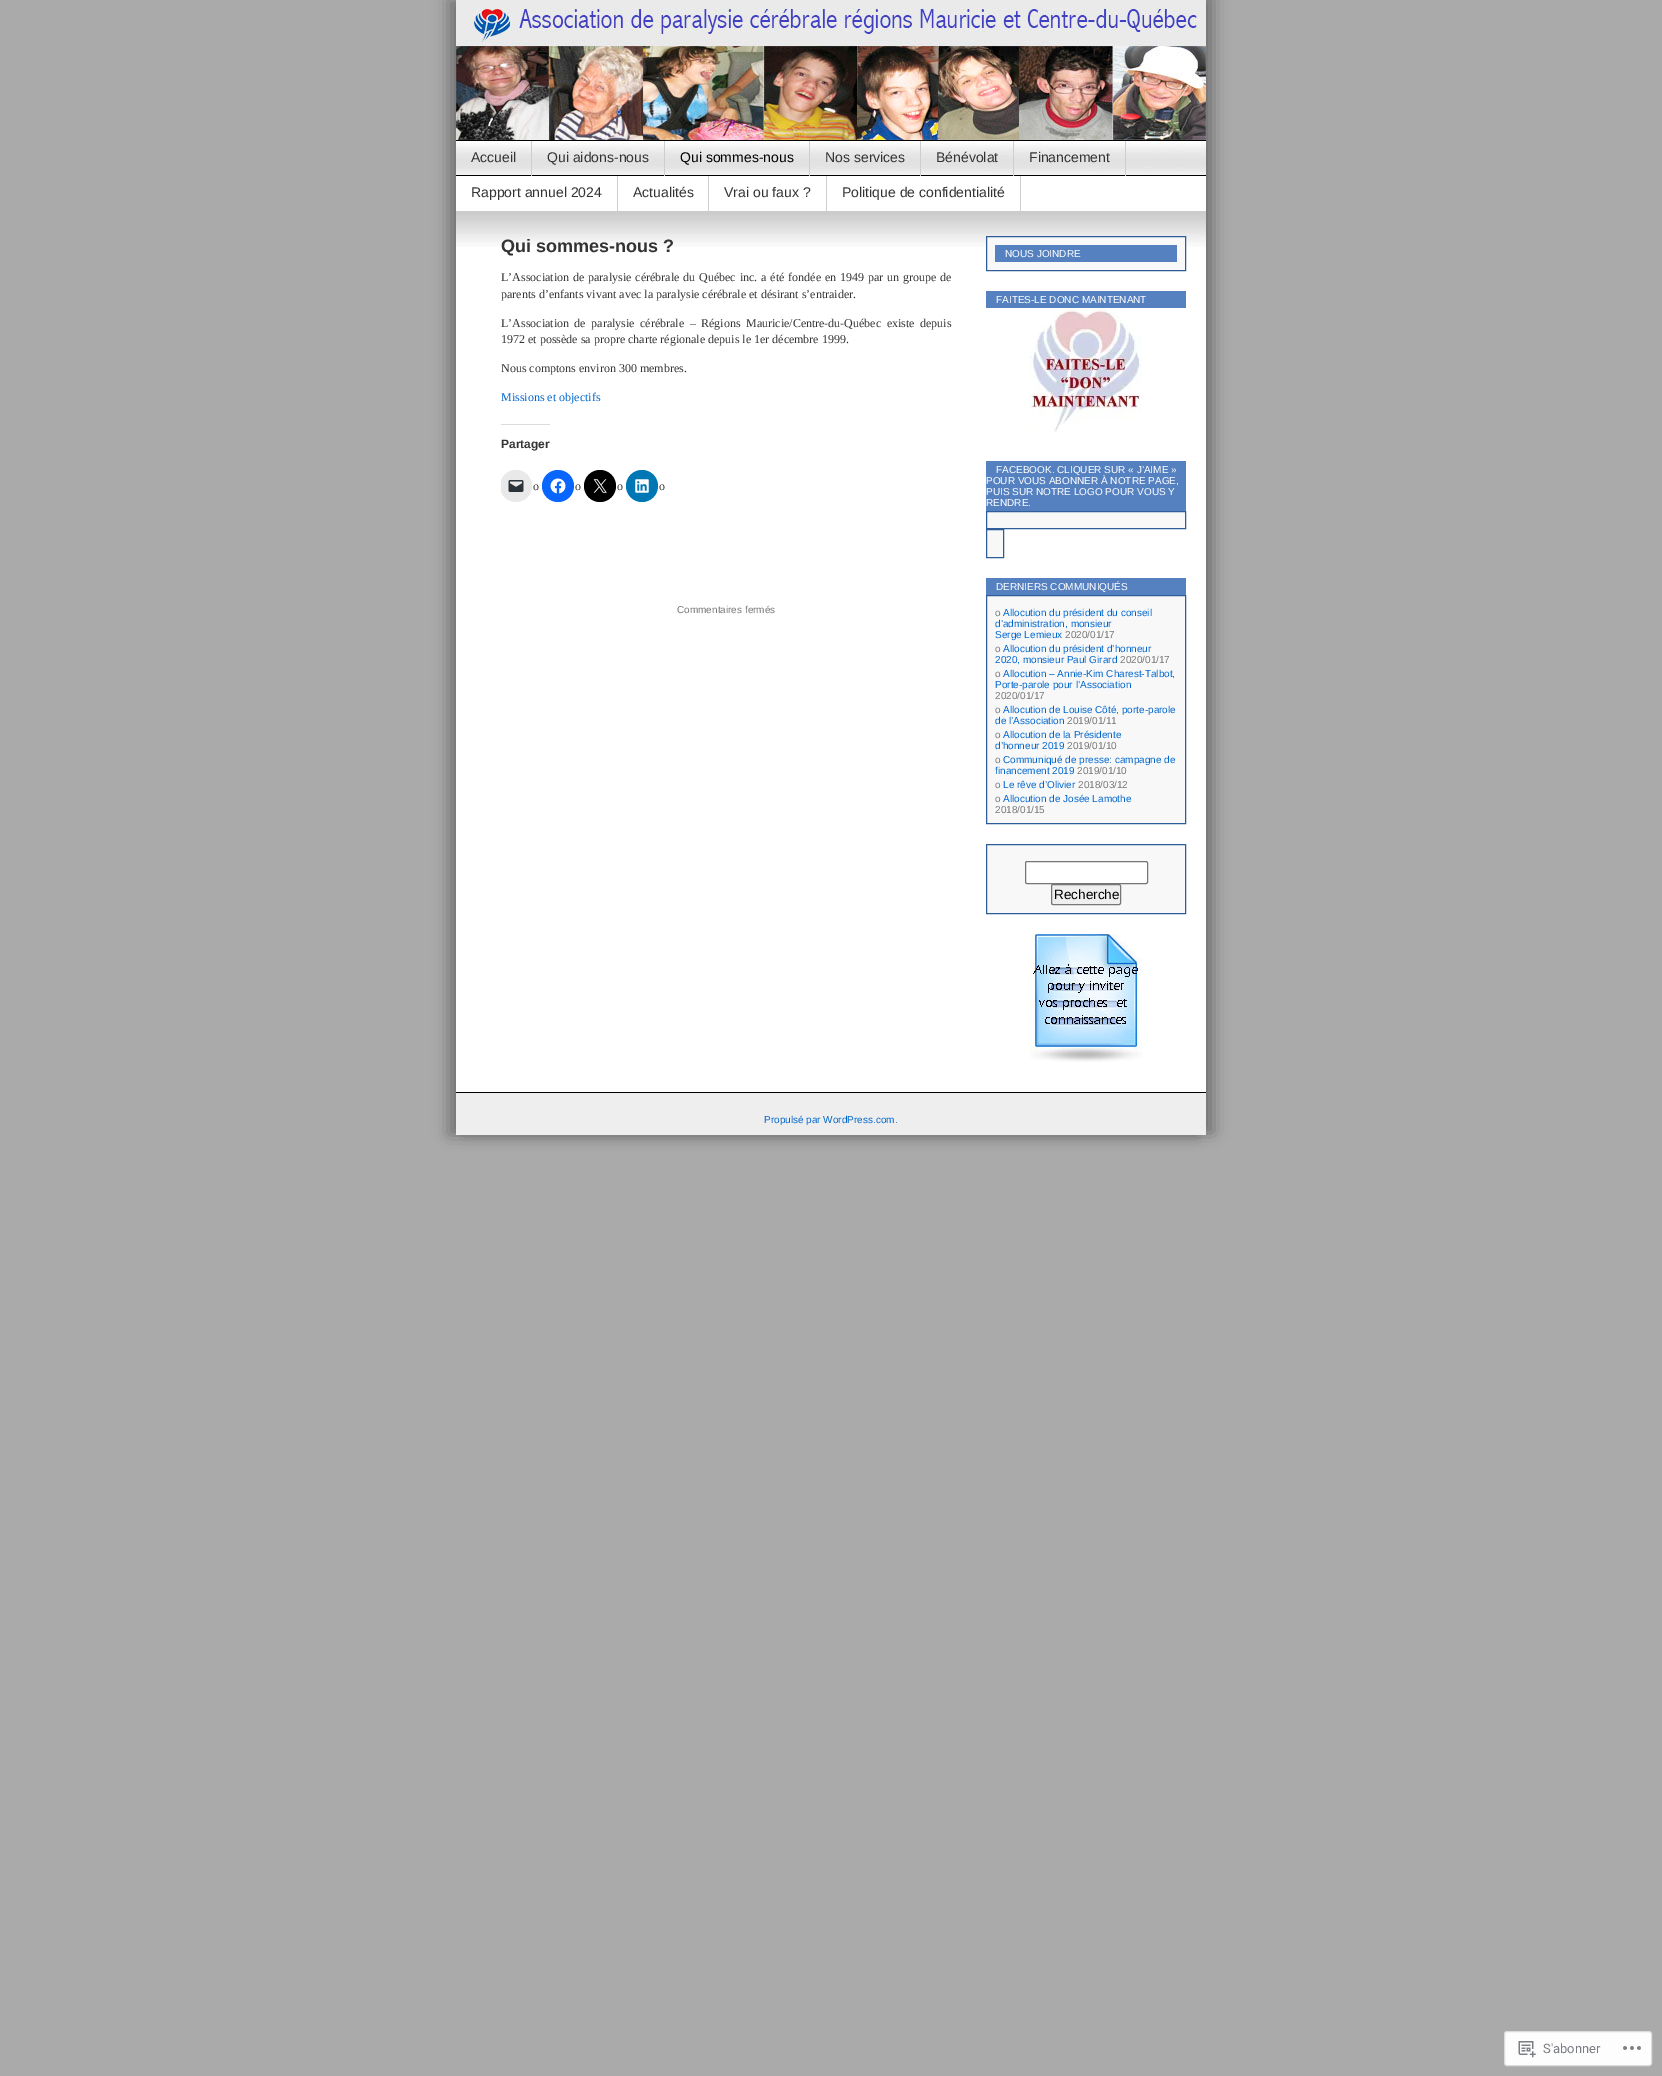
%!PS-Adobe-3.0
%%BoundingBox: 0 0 1662 2076
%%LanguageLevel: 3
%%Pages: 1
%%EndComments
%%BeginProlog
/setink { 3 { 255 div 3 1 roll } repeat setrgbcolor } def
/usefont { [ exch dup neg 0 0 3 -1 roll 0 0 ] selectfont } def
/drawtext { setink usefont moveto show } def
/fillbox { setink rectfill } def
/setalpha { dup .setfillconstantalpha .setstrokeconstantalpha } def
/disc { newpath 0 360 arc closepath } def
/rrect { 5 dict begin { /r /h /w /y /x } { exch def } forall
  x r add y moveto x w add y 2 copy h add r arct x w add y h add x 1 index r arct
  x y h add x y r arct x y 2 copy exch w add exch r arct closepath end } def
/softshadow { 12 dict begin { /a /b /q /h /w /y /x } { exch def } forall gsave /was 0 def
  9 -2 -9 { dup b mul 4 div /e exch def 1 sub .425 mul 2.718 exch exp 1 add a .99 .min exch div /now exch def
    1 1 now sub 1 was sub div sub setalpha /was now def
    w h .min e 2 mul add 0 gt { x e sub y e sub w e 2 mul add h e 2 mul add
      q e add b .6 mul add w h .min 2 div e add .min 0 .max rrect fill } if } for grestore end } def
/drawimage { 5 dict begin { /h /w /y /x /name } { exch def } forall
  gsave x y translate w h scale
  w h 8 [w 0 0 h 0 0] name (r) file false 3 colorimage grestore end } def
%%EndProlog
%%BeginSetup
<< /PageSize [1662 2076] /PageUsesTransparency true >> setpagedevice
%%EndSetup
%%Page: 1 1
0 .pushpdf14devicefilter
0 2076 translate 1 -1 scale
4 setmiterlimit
0 0 1662 2076 170 170 170 fillbox
0 0 0 setink
448 0 750 1135 0 8 0.3 softshadow
464 -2 750 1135 0 8 0.3 softshadow
456 141 750 951 255 255 255 fillbox
456 140 750 1 0 0 0 fillbox
(assets/img1.rgb) 456 0 750 140 drawimage
(assets/img2.rgb) 456 143 750 32 drawimage
456 175 750 1 0 0 0 fillbox
531 141 1 35 206 206 206 fillbox
(Accueil) 471 162 /LiberationSans-Regular 14 51 51 51 drawtext
664 141 1 35 206 206 206 fillbox
(Qui aidons-nous) 547 162 /LiberationSans-Regular 14 51 51 51 drawtext
809 141 1 35 206 206 206 fillbox
(Qui sommes-nous) 680 162 /LiberationSans-Regular 14 0 0 0 drawtext
920 141 1 35 206 206 206 fillbox
(Nos services) 825 162 /LiberationSans-Regular 14 51 51 51 drawtext
1013 141 1 35 206 206 206 fillbox
(Bénévolat) 936 162 /LiberationSans-Regular 14 51 51 51 drawtext
1125 141 1 35 206 206 206 fillbox
(Financement) 1029 162 /LiberationSans-Regular 14 51 51 51 drawtext
617 176 1 35 206 206 206 fillbox
(Rapport annuel 2024) 471 197 /LiberationSans-Regular 14 51 51 51 drawtext
708 176 1 35 206 206 206 fillbox
(Actualités) 633 197 /LiberationSans-Regular 14 51 51 51 drawtext
826 176 1 35 206 206 206 fillbox
(Vrai ou faux ?) 724 197 /LiberationSans-Regular 14 51 51 51 drawtext
1020 176 1 35 206 206 206 fillbox
(Politique de confidentialité) 842 197 /LiberationSans-Regular 14 51 51 51 drawtext
(assets/img3.rgb) 456 211 750 36 drawimage
(Qui sommes-nous ?) 501 252 /LiberationSans-Bold 18 51 51 51 drawtext
/LiberationSerif-Regular 12 usefont
501 281 moveto 0.9 0 32 (L’Association de paralysie cérébrale du Québec inc. a été fondée en 1949 par un groupe de) widthshow
(parents d’enfants vivant avec la paralysie cérébrale et désirant s’entraider.) 501 298 /LiberationSerif-Regular 12 51 51 51 drawtext
501 327 moveto 2.5 0 32 (L’Association de paralysie cérébrale – Régions Mauricie/Centre-du-Québec existe depuis) widthshow
(1972 et possède sa propre charte régionale depuis le 1er décembre 1999.) 501 343 /LiberationSerif-Regular 12 51 51 51 drawtext
(Nous comptons environ 300 membres.) 501 372 /LiberationSerif-Regular 12 51 51 51 drawtext
(Missions et objectifs) 501 401 /LiberationSerif-Regular 12 0 102 204 drawtext
501 424 49 1 220 220 222 fillbox
(Partager) 501 448 /LiberationSans-Bold 12 51 51 51 drawtext
gsave
501 257 450 317 rectclip
233 233 233 setink
516 486 16 disc fill
grestore
(assets/img4.rgb) 508 480 16 12 drawimage
(o) 533 490 /LiberationSerif-Regular 12 51 51 51 drawtext
8 102 255 setink
558 486 16 disc fill
(assets/img5.rgb) 550 478 16 16 drawimage
(o) 575 490 /LiberationSerif-Regular 12 51 51 51 drawtext
0 0 0 setink
600 486 16 disc fill
(assets/img6.rgb) 593 479 14 14 drawimage
(o) 617 490 /LiberationSerif-Regular 12 51 51 51 drawtext
0 119 181 setink
642 486 16 disc fill
(assets/img7.rgb) 635 479 14 14 drawimage
(o) 659 490 /LiberationSerif-Regular 12 51 51 51 drawtext
(Commentaires fermés) 677 613 /LiberationSans-Regular 10 119 119 119 drawtext
248 248 248 setink
986.5 236.5 moveto 1185.5 236.5 lineto 1185.5 270.5 lineto 986.5 270.5 lineto closepath gsave fill grestore
46 93 153 setink
stroke
995 245 182 17 85 129 192 fillbox
(NOUS JOINDRE) 1005 257 /LiberationSans-Regular 10 255 255 255 drawtext
986 291 200 17 85 129 192 fillbox
(FAITES-LE DONC MAINTENANT) 996 303 /LiberationSans-Regular 10 255 255 255 drawtext
(assets/img8.rgb) 1030 308 112 124 drawimage
986 461 200 50 85 129 192 fillbox
(FACEBOOK. CLIQUER SUR « J’AIME ») 996 473 /LiberationSans-Regular 10 255 255 255 drawtext
(POUR VOUS ABONNER À NOTRE PAGE,) 986 484 /LiberationSans-Regular 10 255 255 255 drawtext
(PUIS SUR NOTRE LOGO POUR VOUS Y) 986 495 /LiberationSans-Regular 10 255 255 255 drawtext
(RENDRE.) 986 506 /LiberationSans-Regular 10 255 255 255 drawtext
248 248 248 setink
986.5 511.5 moveto 1185.5 511.5 lineto 1185.5 528.5 lineto 986.5 528.5 lineto closepath gsave fill grestore
46 93 153 setink
stroke
248 248 248 setink
986.5 529.5 moveto 1003.5 529.5 lineto 1003.5 557.5 lineto 986.5 557.5 lineto closepath gsave fill grestore
46 93 153 setink
stroke
986 578 200 17 85 129 192 fillbox
(DERNIERS COMMUNIQUÉS) 996 590 /LiberationSans-Regular 10 255 255 255 drawtext
248 248 248 setink
986.5 595.5 moveto 1185.5 595.5 lineto 1185.5 823.5 lineto 986.5 823.5 lineto closepath gsave fill grestore
46 93 153 setink
stroke
(o) 995 616 /LiberationSans-Regular 10 119 119 119 drawtext
(Allocution du président du conseil) 1003 616 /LiberationSans-Regular 10 0 102 204 drawtext
(d’administration, monsieur) 995 627 /LiberationSans-Regular 10 0 102 204 drawtext
(Serge Lemieux) 995 638 /LiberationSans-Regular 10 0 102 204 drawtext
(2020/01/17) 1065 638 /LiberationSans-Regular 10 119 119 119 drawtext
(o) 995 652 /LiberationSans-Regular 10 119 119 119 drawtext
(Allocution du président d’honneur) 1003 652 /LiberationSans-Regular 10 0 102 204 drawtext
(2020, monsieur Paul Girard) 995 663 /LiberationSans-Regular 10 0 102 204 drawtext
(2020/01/17) 1120 663 /LiberationSans-Regular 10 119 119 119 drawtext
(o) 995 677 /LiberationSans-Regular 10 119 119 119 drawtext
(Allocution – Annie-Kim Charest-Talbot,) 1003 677 /LiberationSans-Regular 10 0 102 204 drawtext
(Porte-parole pour l’Association) 995 688 /LiberationSans-Regular 10 0 102 204 drawtext
(2020/01/17) 995 699 /LiberationSans-Regular 10 119 119 119 drawtext
(o) 995 713 /LiberationSans-Regular 10 119 119 119 drawtext
(Allocution de Louise Côté, porte-parole) 1003 713 /LiberationSans-Regular 10 0 102 204 drawtext
(de l’Association) 995 724 /LiberationSans-Regular 10 0 102 204 drawtext
(2019/01/11) 1067 724 /LiberationSans-Regular 10 119 119 119 drawtext
(o) 995 738 /LiberationSans-Regular 10 119 119 119 drawtext
(Allocution de la Présidente) 1003 738 /LiberationSans-Regular 10 0 102 204 drawtext
(d’honneur 2019) 995 749 /LiberationSans-Regular 10 0 102 204 drawtext
(2019/01/10) 1067 749 /LiberationSans-Regular 10 119 119 119 drawtext
(o) 995 763 /LiberationSans-Regular 10 119 119 119 drawtext
(Communiqué de presse: campagne de) 1003 763 /LiberationSans-Regular 10 0 102 204 drawtext
(financement 2019) 995 774 /LiberationSans-Regular 10 0 102 204 drawtext
(2019/01/10) 1077 774 /LiberationSans-Regular 10 119 119 119 drawtext
(o) 995 788 /LiberationSans-Regular 10 119 119 119 drawtext
(Le rêve d’Olivier) 1003 788 /LiberationSans-Regular 10 0 102 204 drawtext
(2018/03/12) 1078 788 /LiberationSans-Regular 10 119 119 119 drawtext
(o) 995 802 /LiberationSans-Regular 10 119 119 119 drawtext
(Allocution de Josée Lamothe) 1003 802 /LiberationSans-Regular 10 0 102 204 drawtext
(2018/01/15) 995 813 /LiberationSans-Regular 10 119 119 119 drawtext
248 248 248 setink
986.5 844.5 moveto 1185.5 844.5 lineto 1185.5 913.5 lineto 986.5 913.5 lineto closepath gsave fill grestore
46 93 153 setink
stroke
255 255 255 setink
1025.5 861.5 122 22 1.5 rrect gsave fill grestore
118 118 118 setink
stroke
239 239 239 setink
1051.5 884.5 69 20 1.5 rrect gsave fill grestore
118 118 118 setink
stroke
(Recherche) 1054 899 /LiberationSans-Regular 13.5 0 0 0 drawtext
(assets/img9.rgb) 1030 934 112 128 drawimage
456 1093 750 42 238 238 238 fillbox
456 1092 750 1 0 0 0 fillbox
(Propulsé par WordPress.com.) 764 1123 /LiberationSans-Regular 10 0 102 204 drawtext
253 253 253 setink
1504.5 2031.5 147 34 2.5 rrect gsave fill grestore
219 219 221 setink
stroke
(assets/img10.rgb) 1518 2041 18 17 drawimage
(S'abonner) 1543 2053 /Roboto-Regular 13 121 125 131 drawtext
(assets/img11.rgb) 1623 2046 18 4 drawimage
.poppdf14devicefilter showpage
%%EOF
